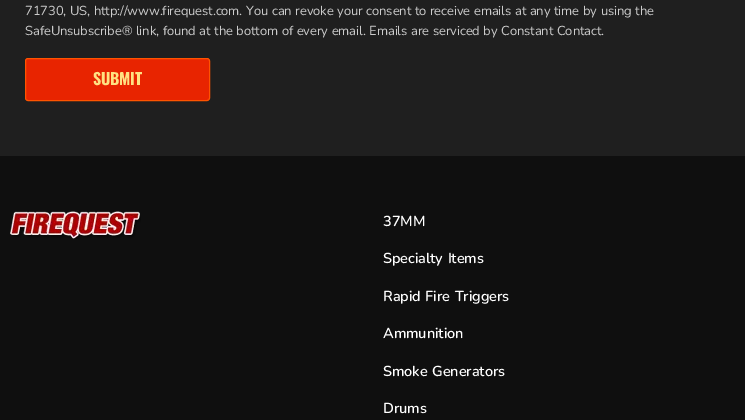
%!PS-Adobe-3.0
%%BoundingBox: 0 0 745 420
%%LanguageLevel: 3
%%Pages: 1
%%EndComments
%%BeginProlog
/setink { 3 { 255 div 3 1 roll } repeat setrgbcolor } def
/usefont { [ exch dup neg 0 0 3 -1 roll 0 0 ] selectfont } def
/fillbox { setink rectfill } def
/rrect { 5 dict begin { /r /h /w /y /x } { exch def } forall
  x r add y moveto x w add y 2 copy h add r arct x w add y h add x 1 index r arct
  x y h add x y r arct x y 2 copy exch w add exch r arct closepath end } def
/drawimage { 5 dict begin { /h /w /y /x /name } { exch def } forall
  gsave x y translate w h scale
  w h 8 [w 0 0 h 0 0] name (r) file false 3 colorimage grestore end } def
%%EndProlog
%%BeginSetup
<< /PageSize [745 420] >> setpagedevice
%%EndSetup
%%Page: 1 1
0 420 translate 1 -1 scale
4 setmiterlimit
0 0 745 420 31 31 31 fillbox
/Nunito-Regular 13 usefont
204 204 204 setink
25 15 moveto 0.5 0 32 -0.13 0 (71730, US, http://www.firequest.com. You can revoke your consent to receive emails at any time by using the) awidthshow
25 35 moveto 0.5 0 32 -0.13 0 (SafeUnsubscribe® link, found at the bottom of every email. Emails are serviced by Constant Contact.) awidthshow
232 36 0 setink
25.5 58.5 184 42 2.5 rrect gsave fill grestore
255 83 0 setink
stroke
/Oswald-Bold 16 usefont
255 225 130 setink
93 85 moveto -0.25 0 (SUBMIT) ashow
0 156 745 264 15 15 15 fillbox
(assets/img1.rgb) 10 211 131 28 drawimage
/Nunito-SemiBold 14.5 usefont
255 255 255 setink
383 226 moveto -0.1 0 (37MM) ashow
383 263 moveto 1 0 32 -0.1 0 (Specialty Items) awidthshow
383 301 moveto 1 0 32 -0.1 0 (Rapid Fire Triggers) awidthshow
383 338 moveto -0.1 0 (Ammunition) ashow
383 376 moveto 1 0 32 -0.1 0 (Smoke Generators) awidthshow
383 413 moveto -0.1 0 (Drums) ashow
showpage
%%EOF
